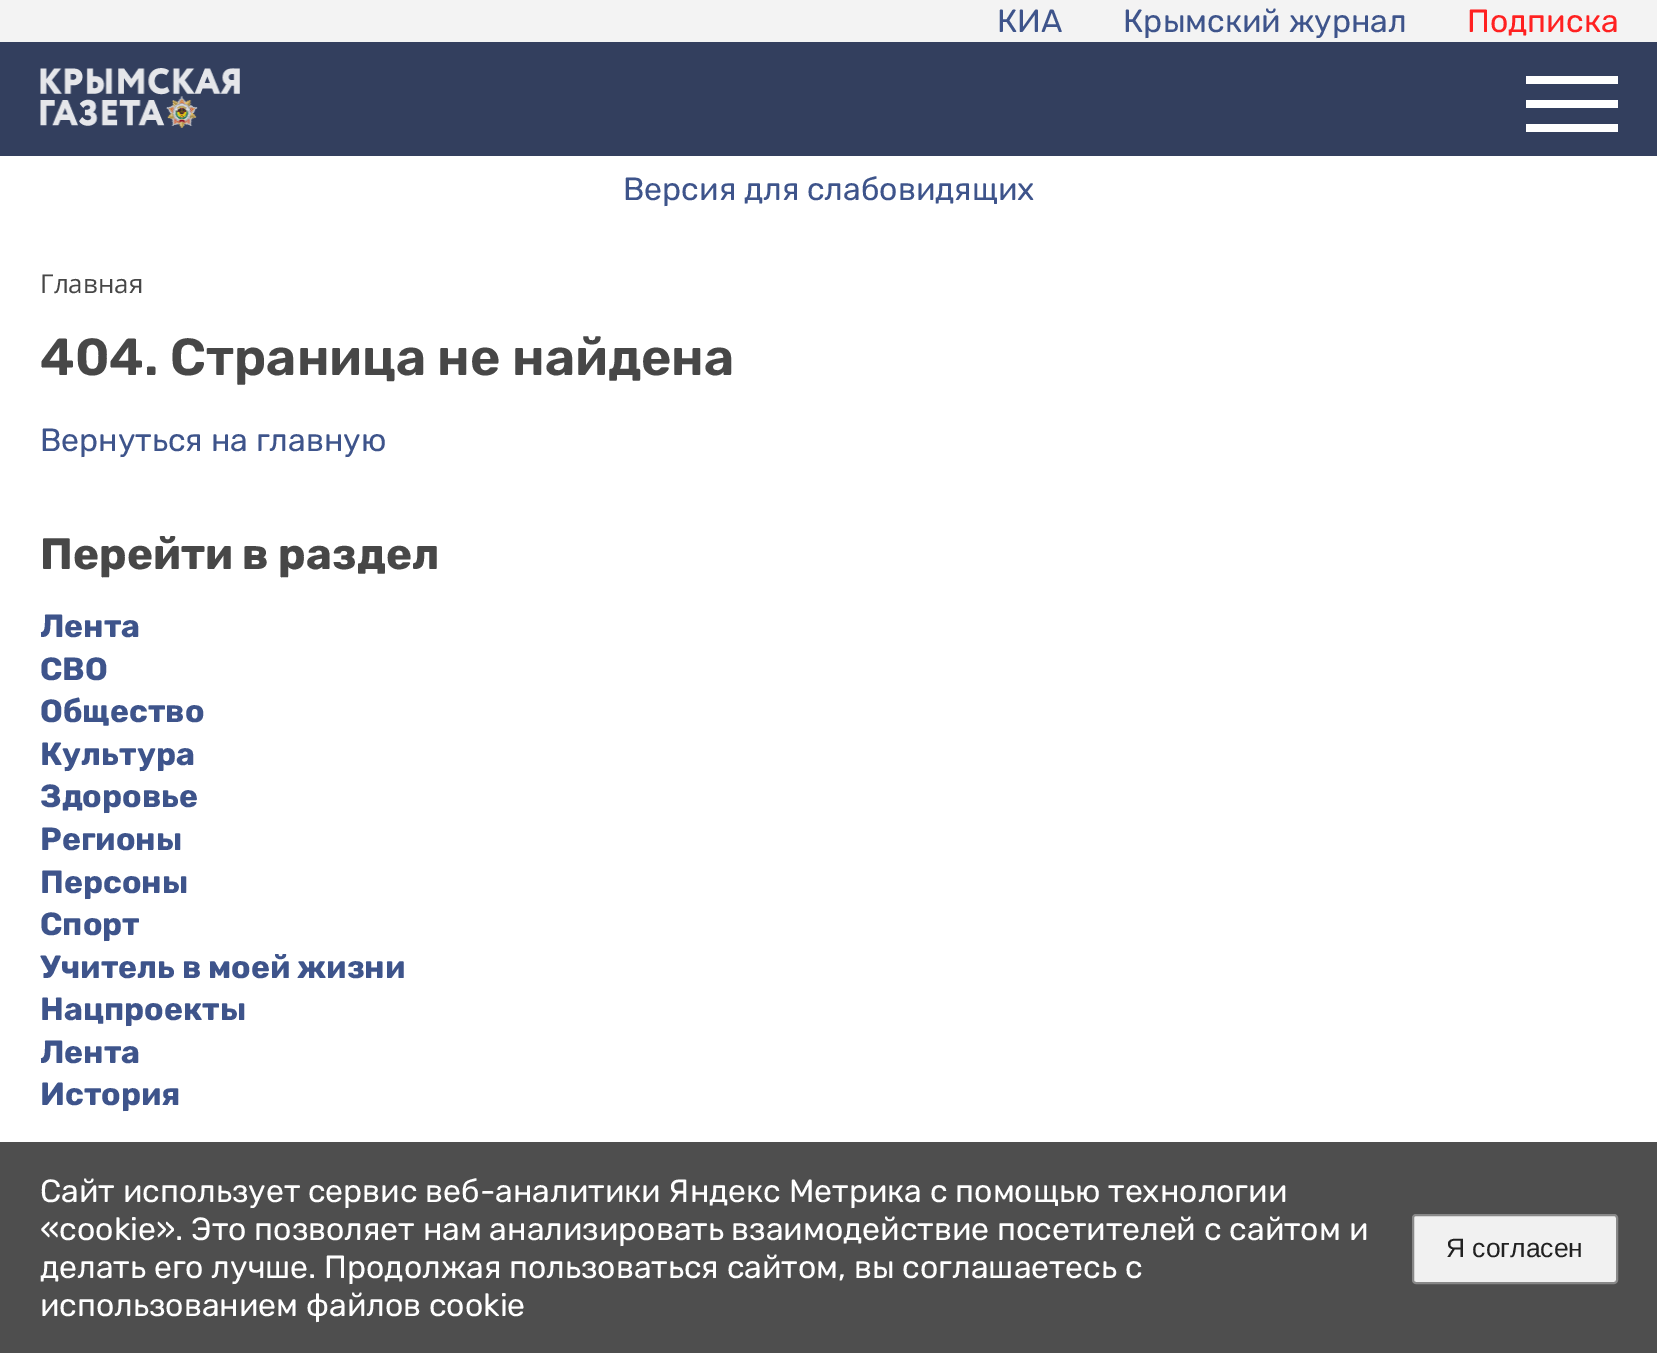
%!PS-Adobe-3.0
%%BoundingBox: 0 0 1657 1353
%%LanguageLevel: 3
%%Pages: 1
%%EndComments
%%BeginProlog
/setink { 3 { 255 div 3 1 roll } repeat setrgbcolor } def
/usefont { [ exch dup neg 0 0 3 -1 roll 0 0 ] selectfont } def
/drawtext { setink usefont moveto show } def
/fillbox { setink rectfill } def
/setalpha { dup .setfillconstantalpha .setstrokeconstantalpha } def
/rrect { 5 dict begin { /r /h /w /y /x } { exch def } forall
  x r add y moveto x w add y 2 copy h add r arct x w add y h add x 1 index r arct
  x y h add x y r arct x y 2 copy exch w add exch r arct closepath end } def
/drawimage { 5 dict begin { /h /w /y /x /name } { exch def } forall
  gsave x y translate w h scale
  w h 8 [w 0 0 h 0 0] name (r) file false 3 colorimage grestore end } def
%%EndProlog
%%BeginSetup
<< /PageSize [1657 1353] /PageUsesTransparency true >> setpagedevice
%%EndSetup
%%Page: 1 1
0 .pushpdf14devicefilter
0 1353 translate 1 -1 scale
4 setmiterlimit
0 0 1657 1353 255 255 255 fillbox
0 0 1657 42 243 243 243 fillbox
(КИА) 997 32 /Rubik-Regular 32 62 84 139 drawtext
(Крымский журнал) 1123 32 /Rubik-Regular 32 62 84 139 drawtext
(Подписка) 1467 32 /Rubik-Regular 32 255 33 33 drawtext
0 42 1657 114 51 63 94 fillbox
(assets/img1.rgb) 40 68 200 60 drawimage
1526 76 92 8 255 255 255 fillbox
1526 100 92 8 255 255 255 fillbox
1526 124 92 8 255 255 255 fillbox
(Версия для слабовидящих) 623 200 /Rubik-Regular 32 62 84 139 drawtext
(Главная) 40 293 /OpenSans-Regular 26 71 71 71 drawtext
(404. Страница не найдена) 40 375 /Rubik-SemiBold 52 71 71 71 drawtext
(Вернуться на главную) 40 451 /Rubik-Regular 32 62 84 139 drawtext
(Перейти в раздел) 40 569 /Rubik-Bold 44 71 71 71 drawtext
(Лента) 40 637 /Rubik-Bold 32 62 84 139 drawtext
(СВО) 40 680 /Rubik-Bold 32 62 84 139 drawtext
(Общество) 40 722 /Rubik-Bold 32 62 84 139 drawtext
(Культура) 40 765 /Rubik-Bold 32 62 84 139 drawtext
(Здоровье) 40 807 /Rubik-Bold 32 62 84 139 drawtext
(Регионы) 40 850 /Rubik-Bold 32 62 84 139 drawtext
(Персоны) 40 893 /Rubik-Bold 32 62 84 139 drawtext
(Спорт) 40 935 /Rubik-Bold 32 62 84 139 drawtext
(Учитель в моей жизни) 40 978 /Rubik-Bold 32 62 84 139 drawtext
(Нацпроекты) 40 1020 /Rubik-Bold 32 62 84 139 drawtext
(Лента) 40 1063 /Rubik-Bold 32 62 84 139 drawtext
(История) 40 1105 /Rubik-Bold 32 62 84 139 drawtext
0.8 setalpha
0 1142 1657 211 34 34 34 fillbox
1 setalpha
(Сайт использует сервис веб-аналитики Яндекс Метрика с помощью технологии) 40 1202 /Rubik-Regular 32 255 255 255 drawtext
(«cookie». Это позволяет нам анализировать взаимодействие посетителей с сайтом и) 40 1240 /Rubik-Regular 32 255 255 255 drawtext
(делать его лучше. Продолжая пользоваться сайтом, вы соглашаетесь с) 40 1278 /Rubik-Regular 32 255 255 255 drawtext
(использованием файлов cookie) 40 1316 /Rubik-Regular 32 255 255 255 drawtext
241 241 241 setink
1413 1215 204 68 3 rrect gsave fill grestore
136 136 136 setink
2 setlinewidth
stroke
(Я согласен) 1446 1257 /LiberationSans-Regular 26.5 33 33 33 drawtext
.poppdf14devicefilter showpage
%%EOF
